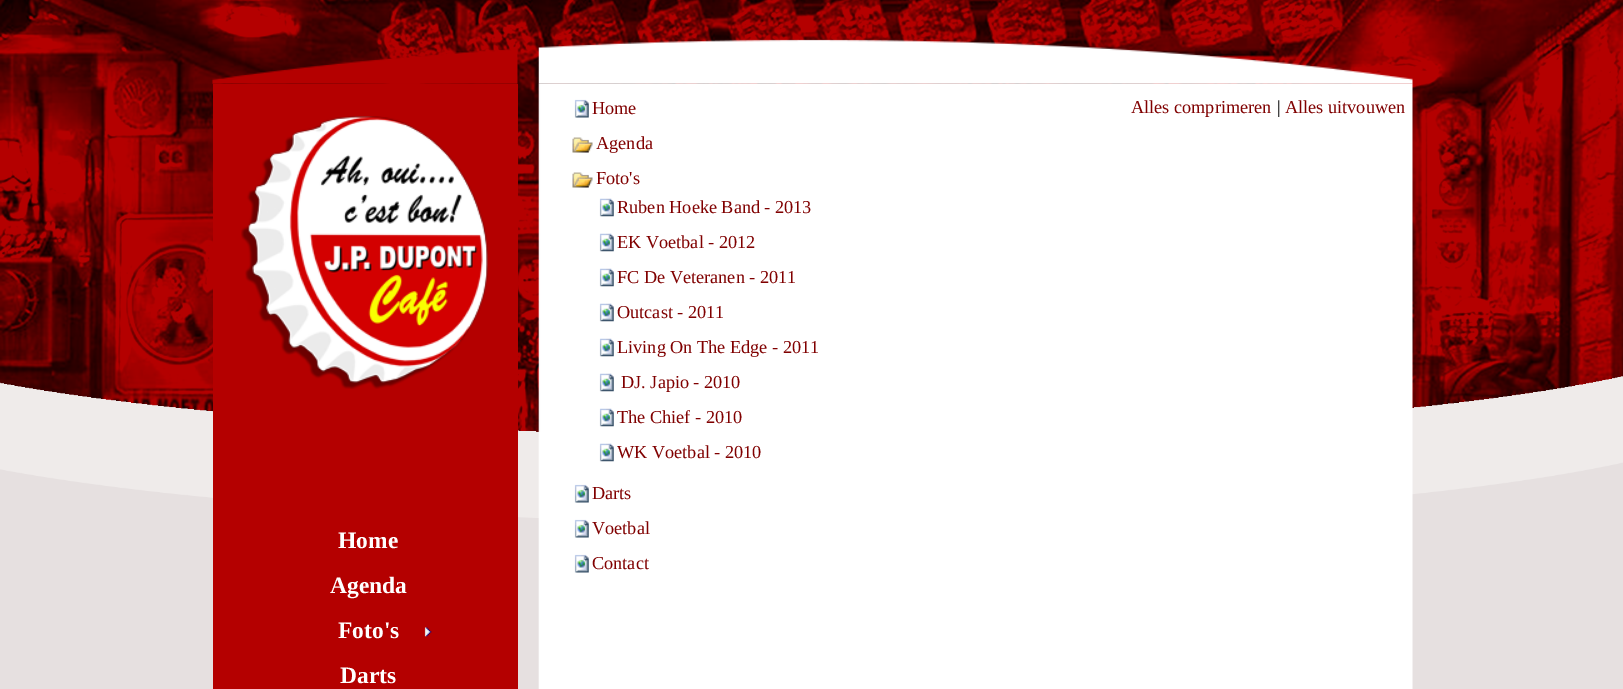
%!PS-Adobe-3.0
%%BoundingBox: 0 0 1623 689
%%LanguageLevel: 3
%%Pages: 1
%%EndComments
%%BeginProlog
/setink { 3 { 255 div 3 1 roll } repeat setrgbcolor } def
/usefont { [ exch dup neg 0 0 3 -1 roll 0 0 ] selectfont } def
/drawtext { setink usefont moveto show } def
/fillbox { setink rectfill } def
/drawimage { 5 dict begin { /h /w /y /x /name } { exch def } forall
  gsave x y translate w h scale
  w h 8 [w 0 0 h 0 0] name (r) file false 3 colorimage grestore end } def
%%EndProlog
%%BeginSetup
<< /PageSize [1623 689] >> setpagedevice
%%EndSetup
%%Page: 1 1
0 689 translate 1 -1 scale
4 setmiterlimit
0 0 1623 689 255 255 255 fillbox
(assets/img1.rgb) 0 0 1623 689 drawimage
(assets/img2.rgb) 212 39 1201 45 drawimage
213 84 305 605 180 0 0 fillbox
(assets/img3.rgb) 241 116 247 273 drawimage
(assets/img4.rgb) 538 83 875 606 drawimage
(assets/img5.rgb) 574 99 15 19 drawimage
(Home) 592 114 /LiberationSerif-Regular 18.25 128 0 0 drawtext
(assets/img6.rgb) 572 137 21 16 drawimage
(Agenda) 596 149 /LiberationSerif-Regular 18.25 128 0 0 drawtext
(assets/img6.rgb) 572 172 21 16 drawimage
(Foto's) 596 184 /LiberationSerif-Regular 18.25 128 0 0 drawtext
(assets/img7.rgb) 599 198 15 19 drawimage
(Ruben Hoeke Band - 2013) 617 213 /LiberationSerif-Regular 18.25 128 0 0 drawtext
(assets/img7.rgb) 599 233 15 19 drawimage
(EK Voetbal - 2012) 617 248 /LiberationSerif-Regular 18.25 128 0 0 drawtext
(assets/img7.rgb) 599 268 15 19 drawimage
(FC De Veteranen - 2011) 617 283 /LiberationSerif-Regular 18.25 128 0 0 drawtext
(assets/img7.rgb) 599 303 15 19 drawimage
(Outcast - 2011) 617 318 /LiberationSerif-Regular 18.25 128 0 0 drawtext
(assets/img7.rgb) 599 338 15 19 drawimage
(Living On The Edge - 2011) 617 353 /LiberationSerif-Regular 18.25 128 0 0 drawtext
(assets/img7.rgb) 599 373 15 19 drawimage
(DJ. Japio - 2010) 621 388 /LiberationSerif-Regular 18.25 128 0 0 drawtext
(assets/img7.rgb) 599 408 15 19 drawimage
(The Chief - 2010) 617 423 /LiberationSerif-Regular 18.25 128 0 0 drawtext
(assets/img7.rgb) 599 443 15 19 drawimage
(WK Voetbal - 2010) 617 458 /LiberationSerif-Regular 18.25 128 0 0 drawtext
(assets/img5.rgb) 574 484 15 19 drawimage
(Darts) 592 499 /LiberationSerif-Regular 18.25 128 0 0 drawtext
(assets/img5.rgb) 574 519 15 19 drawimage
(Voetbal) 592 534 /LiberationSerif-Regular 18.25 128 0 0 drawtext
(assets/img5.rgb) 574 554 15 19 drawimage
(Contact) 592 569 /LiberationSerif-Regular 18.25 128 0 0 drawtext
(Alles comprimeren) 1131 113 /LiberationSerif-Regular 18.25 128 0 0 drawtext
(|) 1277 113 /LiberationSerif-Regular 18.25 0 0 0 drawtext
(Alles uitvouwen) 1285 113 /LiberationSerif-Regular 18.25 128 0 0 drawtext
(Home) 338 548 /LiberationSerif-Bold 23.5 255 255 255 drawtext
(Agenda) 330 593 /LiberationSerif-Bold 23.5 255 255 255 drawtext
(Foto's) 338 638 /LiberationSerif-Bold 23.5 255 255 255 drawtext
(assets/img8.rgb) 424 627 8 10 drawimage
(Darts) 340 683 /LiberationSerif-Bold 23.5 255 255 255 drawtext
showpage
%%EOF
